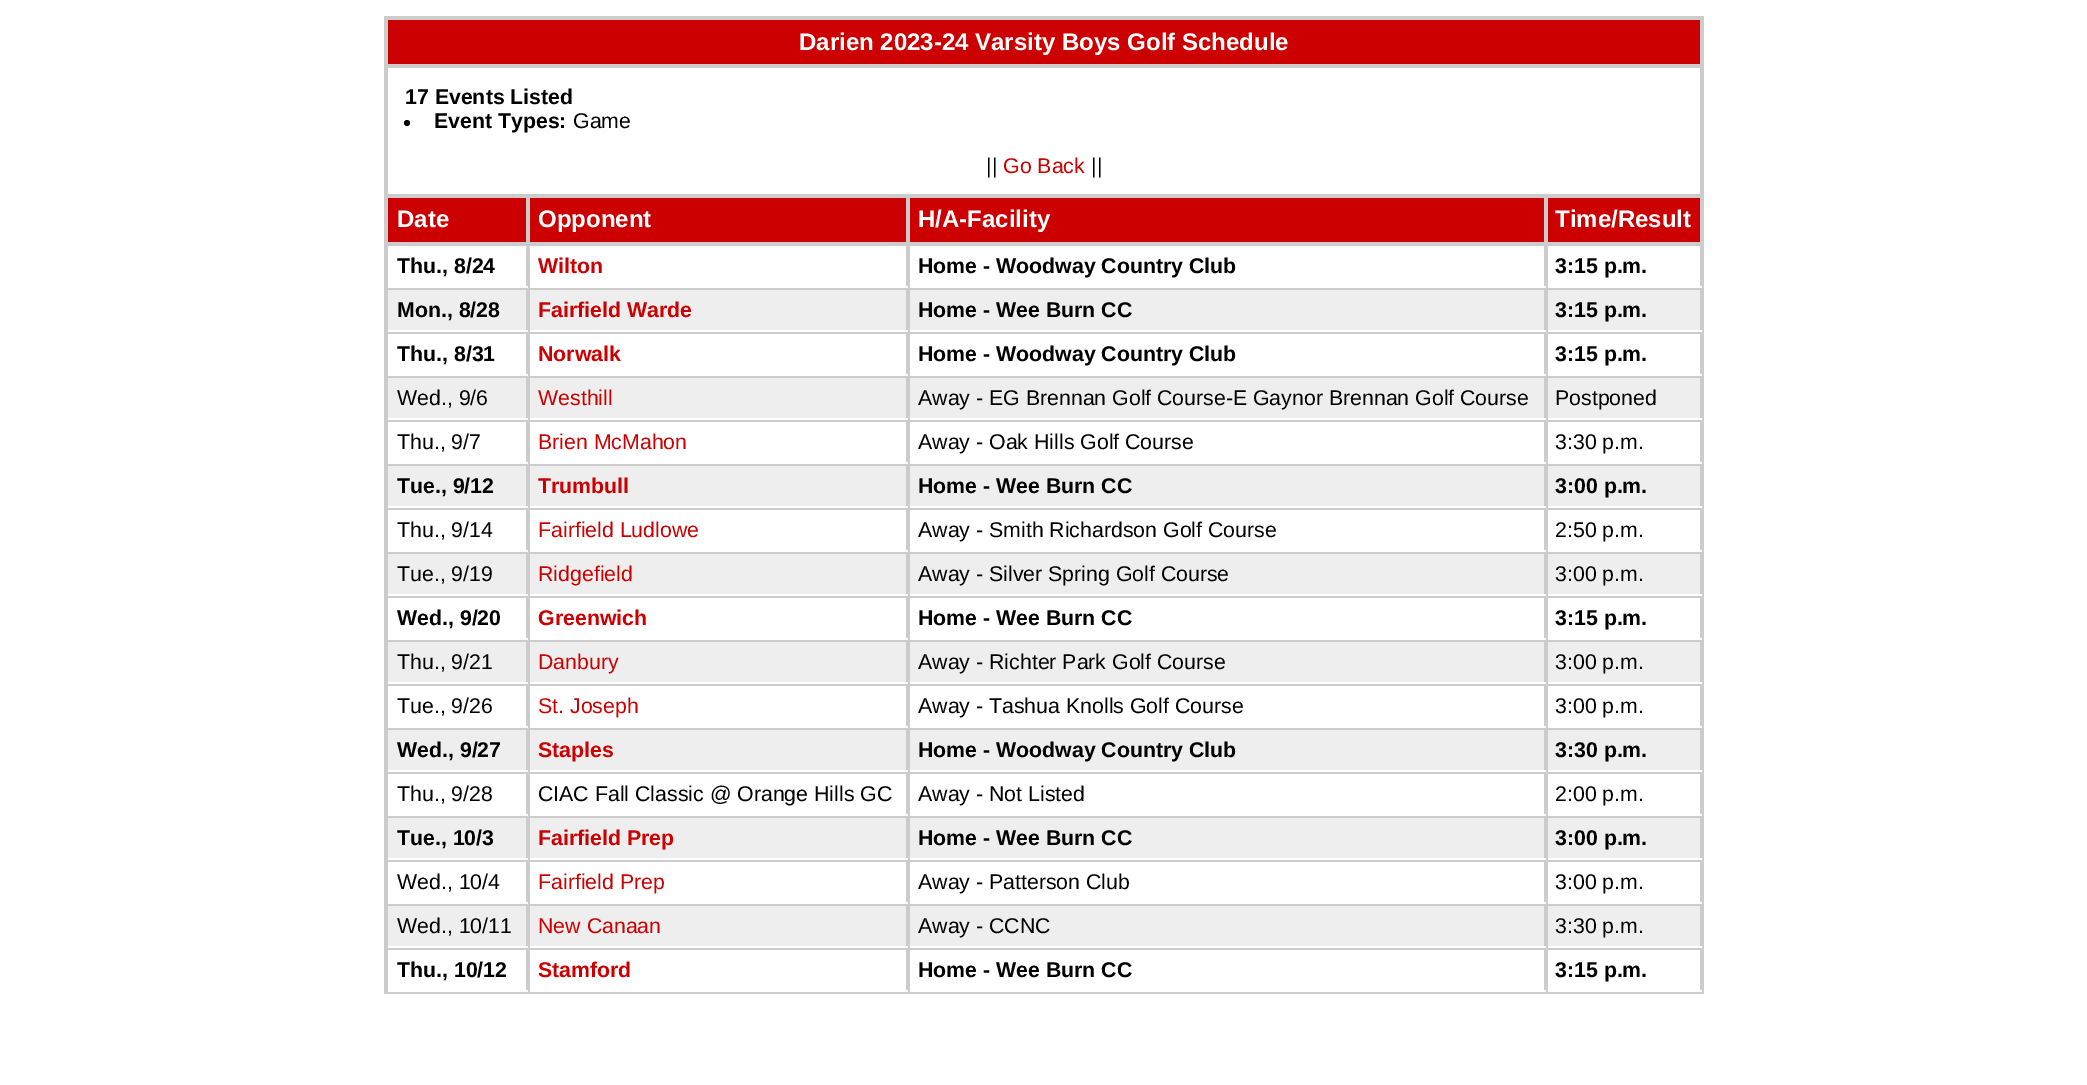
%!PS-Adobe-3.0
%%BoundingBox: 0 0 2087 1085
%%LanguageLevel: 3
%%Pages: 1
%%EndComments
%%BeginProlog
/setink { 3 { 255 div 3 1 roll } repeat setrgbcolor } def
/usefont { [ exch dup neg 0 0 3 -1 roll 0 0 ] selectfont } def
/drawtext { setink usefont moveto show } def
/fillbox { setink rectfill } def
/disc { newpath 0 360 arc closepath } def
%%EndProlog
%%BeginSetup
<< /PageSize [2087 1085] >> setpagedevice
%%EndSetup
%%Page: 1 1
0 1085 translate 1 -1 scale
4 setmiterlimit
0 0 2087 1085 255 255 255 fillbox
384 16 1320 978 204 204 204 fillbox
388 20 1312 44 204 0 0 fillbox
(Darien 2023-24 Varsity Boys Golf Schedule) 799 50 /LiberationSans-Bold 24 255 255 255 drawtext
388 68 1312 126 255 255 255 fillbox
(17 Events Listed) 405 104 /LiberationSans-Bold 21.3 0 0 0 drawtext
407 123 3 disc fill
(Event Types:) 434 128 /LiberationSans-Bold 21.3 0 0 0 drawtext
(Game) 573 128 /LiberationSans-Regular 21.3 0 0 0 drawtext
(||) 986 173 /LiberationSans-Regular 21.3 0 0 0 drawtext
(Go Back) 1003 173 /LiberationSans-Regular 21.3 204 0 0 drawtext
(||) 1091 173 /LiberationSans-Regular 21.3 0 0 0 drawtext
388 198 138 44 204 0 0 fillbox
(Date) 397 227 /LiberationSans-Bold 24 255 255 255 drawtext
530 198 376 44 204 0 0 fillbox
(Opponent) 538 227 /LiberationSans-Bold 24 255 255 255 drawtext
910 198 634 44 204 0 0 fillbox
(H/A-Facility) 918 227 /LiberationSans-Bold 24 255 255 255 drawtext
1548 198 152 44 204 0 0 fillbox
(Time/Result) 1555 227 /LiberationSans-Bold 24 255 255 255 drawtext
388 246 1312 40 255 255 255 fillbox
526 244 2 44 204 204 204 fillbox
386 286 142 2 255 255 255 fillbox
386 286 2 2 204 204 204 fillbox
(Thu., 8/24) 397 273 /LiberationSans-Bold 21.3 0 0 0 drawtext
906 244 2 44 204 204 204 fillbox
528 286 380 2 255 255 255 fillbox
528 244 2 44 204 204 204 fillbox
(Wilton) 538 273 /LiberationSans-Bold 21.3 204 0 0 drawtext
1544 244 2 44 204 204 204 fillbox
908 286 794 2 255 255 255 fillbox
908 244 2 44 204 204 204 fillbox
(Home - Woodway Country Club) 918 273 /LiberationSans-Bold 21.3 0 0 0 drawtext
1546 244 2 44 204 204 204 fillbox
(3:15 p.m.) 1555 273 /LiberationSans-Bold 21.3 0 0 0 drawtext
388 290 1312 40 238 238 238 fillbox
526 288 2 44 204 204 204 fillbox
386 330 142 2 255 255 255 fillbox
386 330 2 2 204 204 204 fillbox
(Mon., 8/28) 397 317 /LiberationSans-Bold 21.3 0 0 0 drawtext
906 288 2 44 204 204 204 fillbox
528 330 380 2 255 255 255 fillbox
528 288 2 44 204 204 204 fillbox
(Fairfield Warde) 538 317 /LiberationSans-Bold 21.3 204 0 0 drawtext
1544 288 2 44 204 204 204 fillbox
908 330 794 2 255 255 255 fillbox
908 288 2 44 204 204 204 fillbox
(Home - Wee Burn CC) 918 317 /LiberationSans-Bold 21.3 0 0 0 drawtext
1546 288 2 44 204 204 204 fillbox
(3:15 p.m.) 1555 317 /LiberationSans-Bold 21.3 0 0 0 drawtext
388 334 1312 40 255 255 255 fillbox
526 332 2 44 204 204 204 fillbox
386 374 142 2 255 255 255 fillbox
386 374 2 2 204 204 204 fillbox
(Thu., 8/31) 397 361 /LiberationSans-Bold 21.3 0 0 0 drawtext
906 332 2 44 204 204 204 fillbox
528 374 380 2 255 255 255 fillbox
528 332 2 44 204 204 204 fillbox
(Norwalk) 538 361 /LiberationSans-Bold 21.3 204 0 0 drawtext
1544 332 2 44 204 204 204 fillbox
908 374 794 2 255 255 255 fillbox
908 332 2 44 204 204 204 fillbox
(Home - Woodway Country Club) 918 361 /LiberationSans-Bold 21.3 0 0 0 drawtext
1546 332 2 44 204 204 204 fillbox
(3:15 p.m.) 1555 361 /LiberationSans-Bold 21.3 0 0 0 drawtext
388 378 1312 40 238 238 238 fillbox
526 376 2 44 204 204 204 fillbox
386 418 142 2 255 255 255 fillbox
386 418 2 2 204 204 204 fillbox
(Wed., 9/6) 397 405 /LiberationSans-Regular 21.3 0 0 0 drawtext
906 376 2 44 204 204 204 fillbox
528 418 380 2 255 255 255 fillbox
528 376 2 44 204 204 204 fillbox
(Westhill) 538 405 /LiberationSans-Regular 21.3 204 0 0 drawtext
1544 376 2 44 204 204 204 fillbox
908 418 794 2 255 255 255 fillbox
908 376 2 44 204 204 204 fillbox
(Away - EG Brennan Golf Course-E Gaynor Brennan Golf Course) 918 405 /LiberationSans-Regular 21.3 0 0 0 drawtext
1546 376 2 44 204 204 204 fillbox
(Postponed) 1555 405 /LiberationSans-Regular 21.3 0 0 0 drawtext
388 422 1312 40 255 255 255 fillbox
526 420 2 44 204 204 204 fillbox
386 462 142 2 255 255 255 fillbox
386 462 2 2 204 204 204 fillbox
(Thu., 9/7) 397 449 /LiberationSans-Regular 21.3 0 0 0 drawtext
906 420 2 44 204 204 204 fillbox
528 462 380 2 255 255 255 fillbox
528 420 2 44 204 204 204 fillbox
(Brien McMahon) 538 449 /LiberationSans-Regular 21.3 204 0 0 drawtext
1544 420 2 44 204 204 204 fillbox
908 462 794 2 255 255 255 fillbox
908 420 2 44 204 204 204 fillbox
(Away - Oak Hills Golf Course) 918 449 /LiberationSans-Regular 21.3 0 0 0 drawtext
1546 420 2 44 204 204 204 fillbox
(3:30 p.m.) 1555 449 /LiberationSans-Regular 21.3 0 0 0 drawtext
388 466 1312 40 238 238 238 fillbox
526 464 2 44 204 204 204 fillbox
386 506 142 2 255 255 255 fillbox
386 506 2 2 204 204 204 fillbox
(Tue., 9/12) 397 493 /LiberationSans-Bold 21.3 0 0 0 drawtext
906 464 2 44 204 204 204 fillbox
528 506 380 2 255 255 255 fillbox
528 464 2 44 204 204 204 fillbox
(Trumbull) 538 493 /LiberationSans-Bold 21.3 204 0 0 drawtext
1544 464 2 44 204 204 204 fillbox
908 506 794 2 255 255 255 fillbox
908 464 2 44 204 204 204 fillbox
(Home - Wee Burn CC) 918 493 /LiberationSans-Bold 21.3 0 0 0 drawtext
1546 464 2 44 204 204 204 fillbox
(3:00 p.m.) 1555 493 /LiberationSans-Bold 21.3 0 0 0 drawtext
388 510 1312 40 255 255 255 fillbox
526 508 2 44 204 204 204 fillbox
386 550 142 2 255 255 255 fillbox
386 550 2 2 204 204 204 fillbox
(Thu., 9/14) 397 537 /LiberationSans-Regular 21.3 0 0 0 drawtext
906 508 2 44 204 204 204 fillbox
528 550 380 2 255 255 255 fillbox
528 508 2 44 204 204 204 fillbox
(Fairfield Ludlowe) 538 537 /LiberationSans-Regular 21.3 204 0 0 drawtext
1544 508 2 44 204 204 204 fillbox
908 550 794 2 255 255 255 fillbox
908 508 2 44 204 204 204 fillbox
(Away - Smith Richardson Golf Course) 918 537 /LiberationSans-Regular 21.3 0 0 0 drawtext
1546 508 2 44 204 204 204 fillbox
(2:50 p.m.) 1555 537 /LiberationSans-Regular 21.3 0 0 0 drawtext
388 554 1312 40 238 238 238 fillbox
526 552 2 44 204 204 204 fillbox
386 594 142 2 255 255 255 fillbox
386 594 2 2 204 204 204 fillbox
(Tue., 9/19) 397 581 /LiberationSans-Regular 21.3 0 0 0 drawtext
906 552 2 44 204 204 204 fillbox
528 594 380 2 255 255 255 fillbox
528 552 2 44 204 204 204 fillbox
(Ridgefield) 538 581 /LiberationSans-Regular 21.3 204 0 0 drawtext
1544 552 2 44 204 204 204 fillbox
908 594 794 2 255 255 255 fillbox
908 552 2 44 204 204 204 fillbox
(Away - Silver Spring Golf Course) 918 581 /LiberationSans-Regular 21.3 0 0 0 drawtext
1546 552 2 44 204 204 204 fillbox
(3:00 p.m.) 1555 581 /LiberationSans-Regular 21.3 0 0 0 drawtext
388 598 1312 40 255 255 255 fillbox
526 596 2 44 204 204 204 fillbox
386 638 142 2 255 255 255 fillbox
386 638 2 2 204 204 204 fillbox
(Wed., 9/20) 397 625 /LiberationSans-Bold 21.3 0 0 0 drawtext
906 596 2 44 204 204 204 fillbox
528 638 380 2 255 255 255 fillbox
528 596 2 44 204 204 204 fillbox
(Greenwich) 538 625 /LiberationSans-Bold 21.3 204 0 0 drawtext
1544 596 2 44 204 204 204 fillbox
908 638 794 2 255 255 255 fillbox
908 596 2 44 204 204 204 fillbox
(Home - Wee Burn CC) 918 625 /LiberationSans-Bold 21.3 0 0 0 drawtext
1546 596 2 44 204 204 204 fillbox
(3:15 p.m.) 1555 625 /LiberationSans-Bold 21.3 0 0 0 drawtext
388 642 1312 40 238 238 238 fillbox
526 640 2 44 204 204 204 fillbox
386 682 142 2 255 255 255 fillbox
386 682 2 2 204 204 204 fillbox
(Thu., 9/21) 397 669 /LiberationSans-Regular 21.3 0 0 0 drawtext
906 640 2 44 204 204 204 fillbox
528 682 380 2 255 255 255 fillbox
528 640 2 44 204 204 204 fillbox
(Danbury) 538 669 /LiberationSans-Regular 21.3 204 0 0 drawtext
1544 640 2 44 204 204 204 fillbox
908 682 794 2 255 255 255 fillbox
908 640 2 44 204 204 204 fillbox
(Away - Richter Park Golf Course) 918 669 /LiberationSans-Regular 21.3 0 0 0 drawtext
1546 640 2 44 204 204 204 fillbox
(3:00 p.m.) 1555 669 /LiberationSans-Regular 21.3 0 0 0 drawtext
388 686 1312 40 255 255 255 fillbox
526 684 2 44 204 204 204 fillbox
386 726 142 2 255 255 255 fillbox
386 726 2 2 204 204 204 fillbox
(Tue., 9/26) 397 713 /LiberationSans-Regular 21.3 0 0 0 drawtext
906 684 2 44 204 204 204 fillbox
528 726 380 2 255 255 255 fillbox
528 684 2 44 204 204 204 fillbox
(St. Joseph) 538 713 /LiberationSans-Regular 21.3 204 0 0 drawtext
1544 684 2 44 204 204 204 fillbox
908 726 794 2 255 255 255 fillbox
908 684 2 44 204 204 204 fillbox
(Away - Tashua Knolls Golf Course) 918 713 /LiberationSans-Regular 21.3 0 0 0 drawtext
1546 684 2 44 204 204 204 fillbox
(3:00 p.m.) 1555 713 /LiberationSans-Regular 21.3 0 0 0 drawtext
388 730 1312 40 238 238 238 fillbox
526 728 2 44 204 204 204 fillbox
386 770 142 2 255 255 255 fillbox
386 770 2 2 204 204 204 fillbox
(Wed., 9/27) 397 757 /LiberationSans-Bold 21.3 0 0 0 drawtext
906 728 2 44 204 204 204 fillbox
528 770 380 2 255 255 255 fillbox
528 728 2 44 204 204 204 fillbox
(Staples) 538 757 /LiberationSans-Bold 21.3 204 0 0 drawtext
1544 728 2 44 204 204 204 fillbox
908 770 794 2 255 255 255 fillbox
908 728 2 44 204 204 204 fillbox
(Home - Woodway Country Club) 918 757 /LiberationSans-Bold 21.3 0 0 0 drawtext
1546 728 2 44 204 204 204 fillbox
(3:30 p.m.) 1555 757 /LiberationSans-Bold 21.3 0 0 0 drawtext
388 774 1312 40 255 255 255 fillbox
526 772 2 44 204 204 204 fillbox
386 814 142 2 255 255 255 fillbox
386 814 2 2 204 204 204 fillbox
(Thu., 9/28) 397 801 /LiberationSans-Regular 21.3 0 0 0 drawtext
906 772 2 44 204 204 204 fillbox
528 814 380 2 255 255 255 fillbox
528 772 2 44 204 204 204 fillbox
(CIAC Fall Classic @ Orange Hills GC) 538 801 /LiberationSans-Regular 21.3 0 0 0 drawtext
1544 772 2 44 204 204 204 fillbox
908 814 794 2 255 255 255 fillbox
908 772 2 44 204 204 204 fillbox
(Away - Not Listed) 918 801 /LiberationSans-Regular 21.3 0 0 0 drawtext
1546 772 2 44 204 204 204 fillbox
(2:00 p.m.) 1555 801 /LiberationSans-Regular 21.3 0 0 0 drawtext
388 818 1312 40 238 238 238 fillbox
526 816 2 44 204 204 204 fillbox
386 858 142 2 255 255 255 fillbox
386 858 2 2 204 204 204 fillbox
(Tue., 10/3) 397 845 /LiberationSans-Bold 21.3 0 0 0 drawtext
906 816 2 44 204 204 204 fillbox
528 858 380 2 255 255 255 fillbox
528 816 2 44 204 204 204 fillbox
(Fairfield Prep) 538 845 /LiberationSans-Bold 21.3 204 0 0 drawtext
1544 816 2 44 204 204 204 fillbox
908 858 794 2 255 255 255 fillbox
908 816 2 44 204 204 204 fillbox
(Home - Wee Burn CC) 918 845 /LiberationSans-Bold 21.3 0 0 0 drawtext
1546 816 2 44 204 204 204 fillbox
(3:00 p.m.) 1555 845 /LiberationSans-Bold 21.3 0 0 0 drawtext
388 862 1312 40 255 255 255 fillbox
526 860 2 44 204 204 204 fillbox
386 902 142 2 255 255 255 fillbox
386 902 2 2 204 204 204 fillbox
(Wed., 10/4) 397 889 /LiberationSans-Regular 21.3 0 0 0 drawtext
906 860 2 44 204 204 204 fillbox
528 902 380 2 255 255 255 fillbox
528 860 2 44 204 204 204 fillbox
(Fairfield Prep) 538 889 /LiberationSans-Regular 21.3 204 0 0 drawtext
1544 860 2 44 204 204 204 fillbox
908 902 794 2 255 255 255 fillbox
908 860 2 44 204 204 204 fillbox
(Away - Patterson Club) 918 889 /LiberationSans-Regular 21.3 0 0 0 drawtext
1546 860 2 44 204 204 204 fillbox
(3:00 p.m.) 1555 889 /LiberationSans-Regular 21.3 0 0 0 drawtext
388 906 1312 40 238 238 238 fillbox
526 904 2 44 204 204 204 fillbox
386 946 142 2 255 255 255 fillbox
386 946 2 2 204 204 204 fillbox
(Wed., 10/11) 397 933 /LiberationSans-Regular 21.3 0 0 0 drawtext
906 904 2 44 204 204 204 fillbox
528 946 380 2 255 255 255 fillbox
528 904 2 44 204 204 204 fillbox
(New Canaan) 538 933 /LiberationSans-Regular 21.3 204 0 0 drawtext
1544 904 2 44 204 204 204 fillbox
908 946 794 2 255 255 255 fillbox
908 904 2 44 204 204 204 fillbox
(Away - CCNC) 918 933 /LiberationSans-Regular 21.3 0 0 0 drawtext
1546 904 2 44 204 204 204 fillbox
(3:30 p.m.) 1555 933 /LiberationSans-Regular 21.3 0 0 0 drawtext
388 950 1312 40 255 255 255 fillbox
526 948 2 44 204 204 204 fillbox
386 990 142 2 255 255 255 fillbox
386 990 2 2 204 204 204 fillbox
(Thu., 10/12) 397 977 /LiberationSans-Bold 21.3 0 0 0 drawtext
906 948 2 44 204 204 204 fillbox
528 990 380 2 255 255 255 fillbox
528 948 2 44 204 204 204 fillbox
(Stamford) 538 977 /LiberationSans-Bold 21.3 204 0 0 drawtext
1544 948 2 44 204 204 204 fillbox
908 990 794 2 255 255 255 fillbox
908 948 2 44 204 204 204 fillbox
(Home - Wee Burn CC) 918 977 /LiberationSans-Bold 21.3 0 0 0 drawtext
1546 948 2 44 204 204 204 fillbox
(3:15 p.m.) 1555 977 /LiberationSans-Bold 21.3 0 0 0 drawtext
showpage
%%EOF
